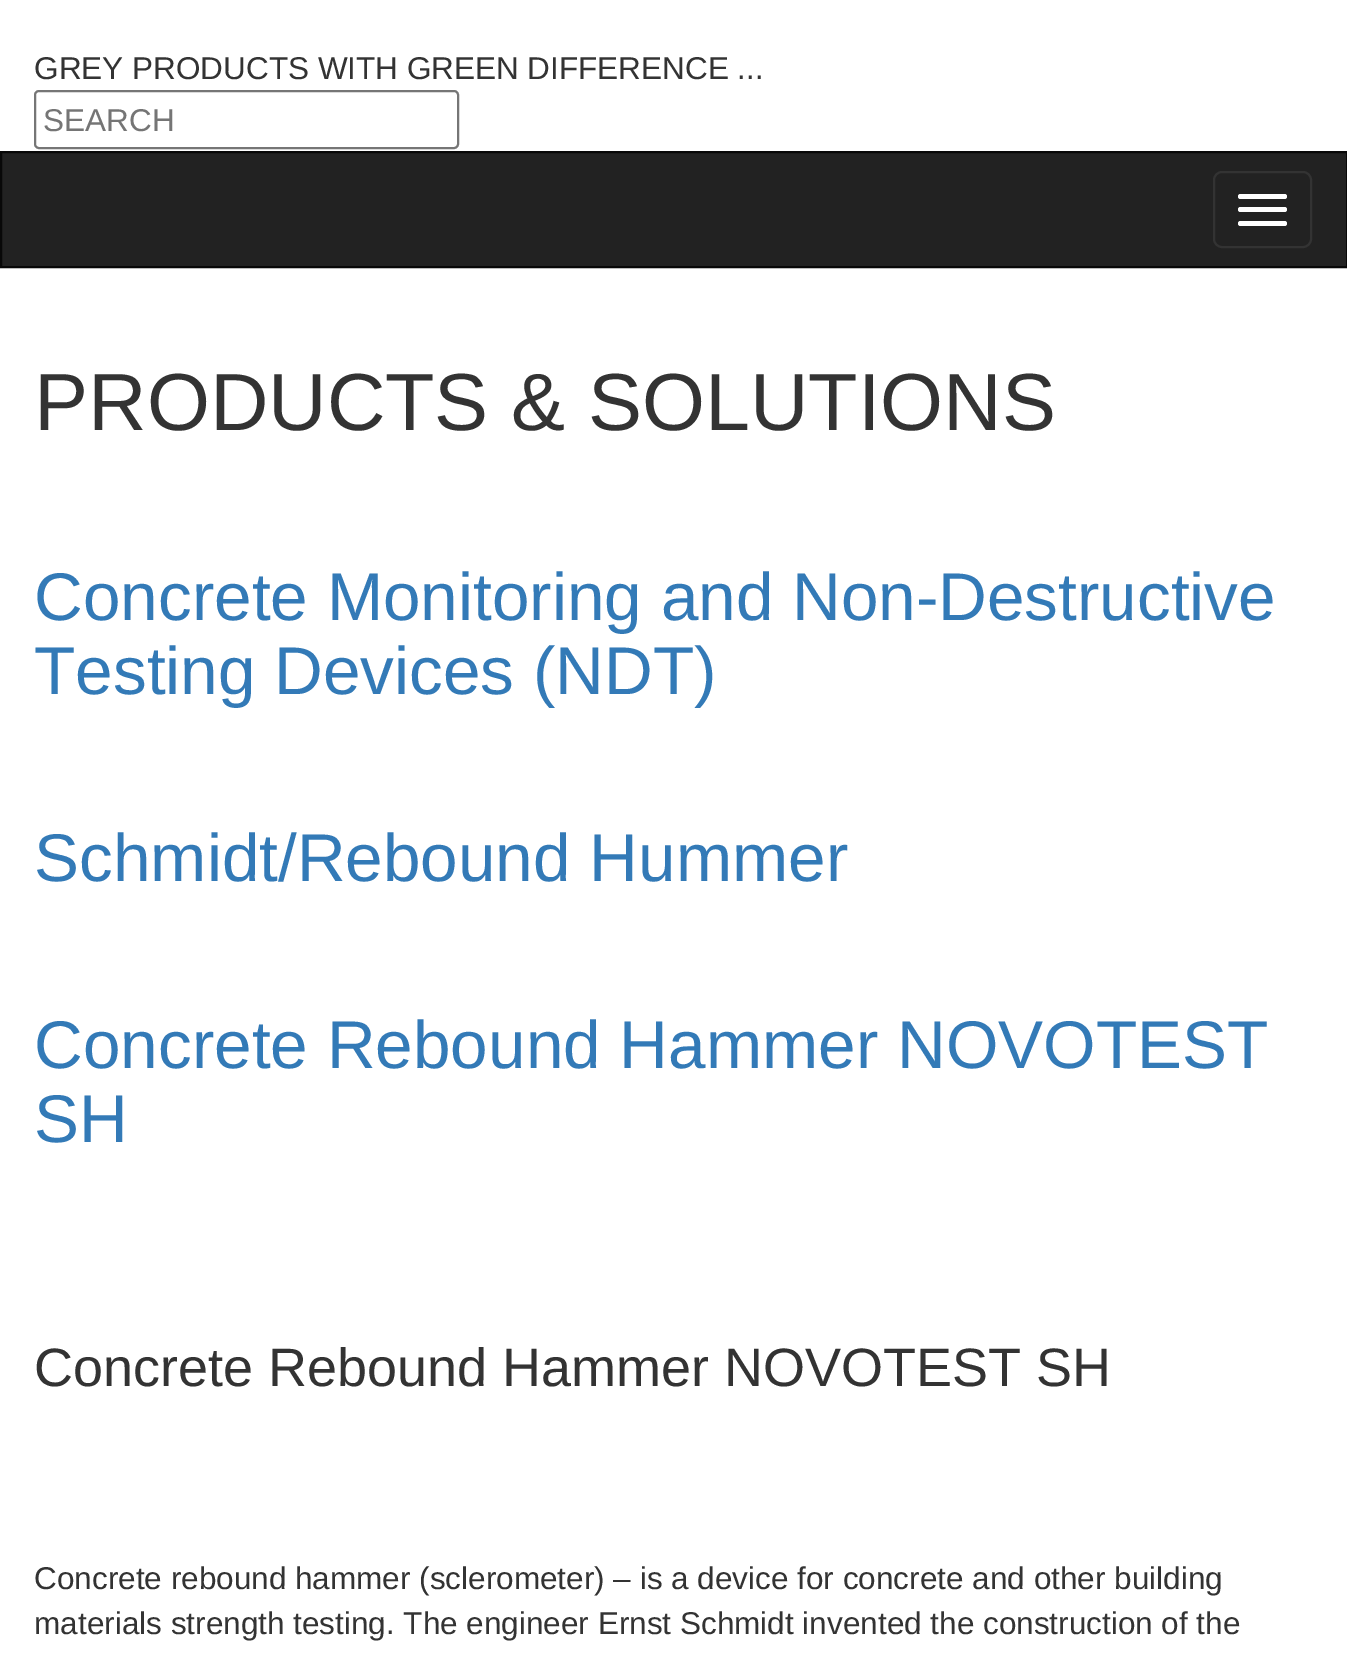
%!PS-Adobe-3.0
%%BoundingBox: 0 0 1347 1656
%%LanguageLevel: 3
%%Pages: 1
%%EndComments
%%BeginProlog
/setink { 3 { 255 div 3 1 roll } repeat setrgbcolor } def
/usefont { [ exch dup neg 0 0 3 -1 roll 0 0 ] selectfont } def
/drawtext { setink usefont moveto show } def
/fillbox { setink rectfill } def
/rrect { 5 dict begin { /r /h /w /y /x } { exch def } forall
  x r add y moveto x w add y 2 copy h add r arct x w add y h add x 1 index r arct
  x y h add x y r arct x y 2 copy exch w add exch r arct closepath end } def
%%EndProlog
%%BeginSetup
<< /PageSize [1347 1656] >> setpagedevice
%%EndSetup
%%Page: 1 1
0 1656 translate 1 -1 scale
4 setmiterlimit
0 0 1347 1656 255 255 255 fillbox
(GREY PRODUCTS WITH GREEN DIFFERENCE ...) 34 79 /LiberationSans-Regular 31.5 51 51 51 drawtext
118 118 118 setink
2 setlinewidth
35 91 423 57 4 rrect stroke
(SEARCH) 43 131 /LiberationSans-Regular 31.5 117 117 117 drawtext
34 34 34 setink
1 152 moveto 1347 152 lineto 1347 267 lineto 1 267 lineto closepath gsave fill grestore
8 8 8 setink
stroke
51 51 51 setink
1214 172 97 75 8 rrect stroke
255 255 255 setink
1238 194 49 5 2.5 rrect fill
1238 207 49 5 2.5 rrect fill
1238 221 49 5 2.5 rrect fill
(PRODUCTS & SOLUTIONS) 34 430 /LiberationSans-Regular 81 51 51 51 drawtext
(Concrete Monitoring and Non-Destructive) 34 620 /LiberationSans-Regular 67.5 51 122 183 drawtext
(Testing Devices \(NDT\)) 34 694 /LiberationSans-Regular 67.5 51 122 183 drawtext
(Schmidt/Rebound Hummer) 34 881 /LiberationSans-Regular 67.5 51 122 183 drawtext
(Concrete Rebound Hammer NOVOTEST) 34 1068 /LiberationSans-Regular 67.5 51 122 183 drawtext
(SH) 34 1142 /LiberationSans-Regular 67.5 51 122 183 drawtext
(Concrete Rebound Hammer NOVOTEST SH) 34 1386 /LiberationSans-Regular 54 51 51 51 drawtext
(Concrete rebound hammer \(sclerometer\) – is a device for concrete and other building) 34 1589 /LiberationSans-Regular 31.5 51 51 51 drawtext
(materials strength testing. The engineer Ernst Schmidt invented the construction of the) 34 1634 /LiberationSans-Regular 31.5 51 51 51 drawtext
showpage
%%EOF
